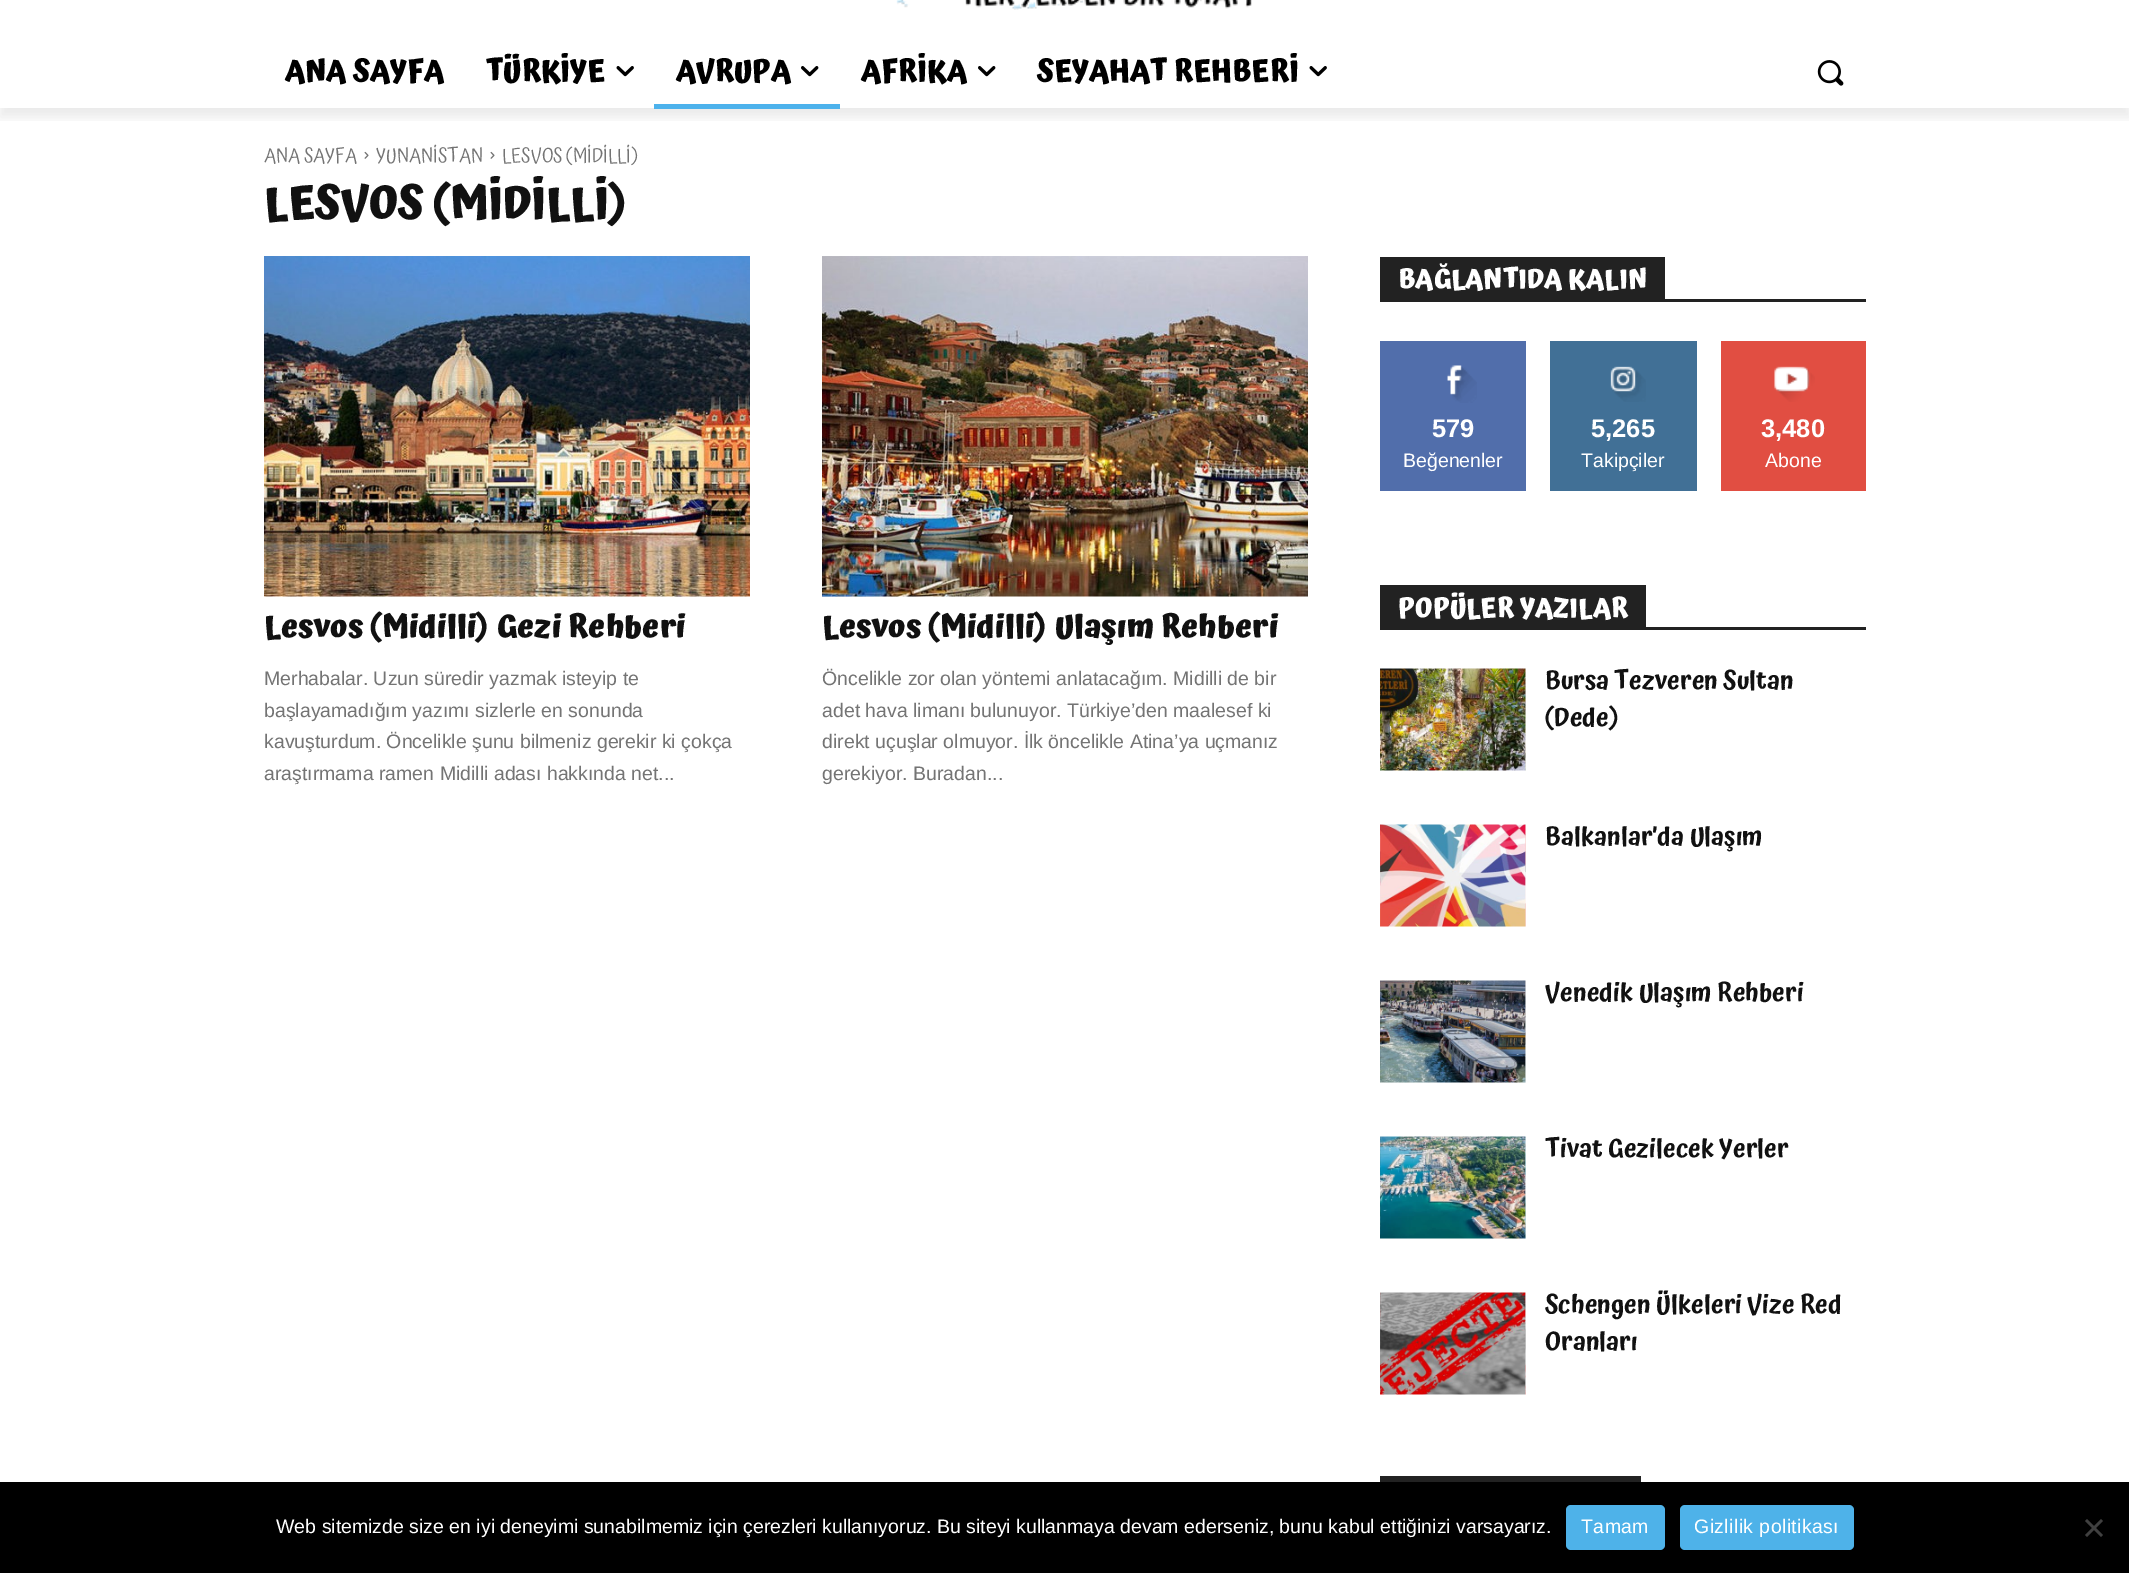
%!PS-Adobe-3.0
%%BoundingBox: 0 0 2129 1573
%%LanguageLevel: 3
%%Pages: 1
%%EndComments
%%BeginProlog
/setink { 3 { 255 div 3 1 roll } repeat setrgbcolor } def
/usefont { [ exch dup neg 0 0 3 -1 roll 0 0 ] selectfont } def
/drawtext { setink usefont moveto show } def
/fillbox { setink rectfill } def
/setalpha { dup .setfillconstantalpha .setstrokeconstantalpha } def
/rrect { 5 dict begin { /r /h /w /y /x } { exch def } forall
  x r add y moveto x w add y 2 copy h add r arct x w add y h add x 1 index r arct
  x y h add x y r arct x y 2 copy exch w add exch r arct closepath end } def
/softshadow { 12 dict begin { /a /b /q /h /w /y /x } { exch def } forall gsave /was 0 def
  9 -2 -9 { dup b mul 4 div /e exch def 1 sub .425 mul 2.718 exch exp 1 add a .99 .min exch div /now exch def
    1 1 now sub 1 was sub div sub setalpha /was now def
    w h .min e 2 mul add 0 gt { x e sub y e sub w e 2 mul add h e 2 mul add
      q e add b .6 mul add w h .min 2 div e add .min 0 .max rrect fill } if } for grestore end } def
/drawimage { 5 dict begin { /h /w /y /x /name } { exch def } forall
  gsave x y translate w h scale
  w h 8 [w 0 0 h 0 0] name (r) file false 3 colorimage grestore end } def
%%EndProlog
%%BeginSetup
<< /PageSize [2129 1573] /PageUsesTransparency true >> setpagedevice
%%EndSetup
%%Page: 1 1
0 .pushpdf14devicefilter
0 1573 translate 1 -1 scale
4 setmiterlimit
0 0 2129 1573 255 255 255 fillbox
(assets/img1.rgb) 896 0 356 10 drawimage
gsave
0 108 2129 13 rectclip
0 0 0 setink
0 -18 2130 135 0 6 0.08 softshadow
grestore
(ANA SAYFA) 285 81 /Atma-Bold 30 0 0 0 drawtext
(TÜRKİYE) 486 81 /Atma-Bold 30 0 0 0 drawtext
(assets/img2.rgb) 616 66 18 11 drawimage
(AVRUPA) 676 81 /Atma-Bold 30 0 0 0 drawtext
(assets/img3.rgb) 801 66 18 11 drawimage
654 104 186 5 77 178 236 fillbox
(AFRİKA) 861 81 /Atma-Bold 30 0 0 0 drawtext
(assets/img3.rgb) 978 66 18 11 drawimage
(SEYAHAT REHBERİ) 1037 81 /Atma-Bold 30 0 0 0 drawtext
(assets/img2.rgb) 1309 66 18 11 drawimage
(assets/img4.rgb) 1817 60 27 26 drawimage
(ANA SAYFA) 264 162 /Atma-Regular 19.5 116 116 116 drawtext
(assets/img5.rgb) 364 151 5 8 drawimage
(YUNANİSTAN) 376 162 /Atma-Regular 19.5 116 116 116 drawtext
(assets/img5.rgb) 490 151 5 8 drawimage
(LESVOS \(MİDİLLİ\)) 502 162 /Atma-Regular 19.5 116 116 116 drawtext
(LESVOS \(MİDİLLİ\)) 264 218 /Atma-Bold 45 17 17 17 drawtext
(assets/img6.rgb) 264 256 486 341 drawimage
(Lesvos \(Midilli\) Gezi Rehberi) 264 637 /Atma-Bold 31.5 17 17 17 drawtext
(Merhabalar. Uzun süredir yazmak isteyip te) 264 685 /LiberationSans-Regular 19.5 116 116 116 drawtext
(başlayamadığım yazımı sizlerle en sonunda) 264 717 /LiberationSans-Regular 19.5 116 116 116 drawtext
(kavuşturdum. Öncelikle şunu bilmeniz gerekir ki çokça) 264 748 /LiberationSans-Regular 19.5 116 116 116 drawtext
(araştırmama ramen Midilli adası hakkında net...) 264 780 /LiberationSans-Regular 19.5 116 116 116 drawtext
(assets/img7.rgb) 822 256 486 341 drawimage
(Lesvos \(Midilli\) Ulaşım Rehberi) 822 637 /Atma-Bold 31.5 17 17 17 drawtext
(Öncelikle zor olan yöntemi anlatacağım. Midilli de bir) 822 685 /LiberationSans-Regular 19.5 116 116 116 drawtext
(adet hava limanı bulunuyor. Türkiye’den maalesef ki) 822 717 /LiberationSans-Regular 19.5 116 116 116 drawtext
(direkt uçuşlar olmuyor. İlk öncelikle Atina’ya uçmanız) 822 748 /LiberationSans-Regular 19.5 116 116 116 drawtext
(gerekiyor. Buradan...) 822 780 /LiberationSans-Regular 19.5 116 116 116 drawtext
1380 299 486 3 34 34 34 fillbox
1380 257 285 42 34 34 34 fillbox
(BAĞLANTIDA KALIN) 1398 288 /Atma-Bold 27 255 255 255 drawtext
1380 341 146 150 81 110 171 fillbox
(assets/img8.rgb) 1447 365 30 38 drawimage
(579) 1432 437 /LiberationSans-Bold 25.5 255 255 255 drawtext
(Beğenenler) 1403 467 /LiberationSans-Regular 19.5 255 255 255 drawtext
1550 341 147 150 65 112 150 fillbox
(assets/img9.rgb) 1610 366 36 36 drawimage
(5,265) 1591 437 /LiberationSans-Bold 25.5 255 255 255 drawtext
(Takipçiler) 1581 467 /LiberationSans-Regular 19.5 255 255 255 drawtext
1721 341 145 150 225 78 66 fillbox
(assets/img10.rgb) 1774 366 41 36 drawimage
(3,480) 1761 437 /LiberationSans-Bold 25.5 255 255 255 drawtext
(Abone) 1765 467 /LiberationSans-Regular 19.5 255 255 255 drawtext
1380 627 486 3 34 34 34 fillbox
1380 585 266 42 34 34 34 fillbox
(POPÜLER YAZILAR) 1398 617 /Atma-Bold 27 255 255 255 drawtext
(assets/img11.rgb) 1380 668 146 103 drawimage
(Bursa Tezveren Sultan) 1545 689 /Atma-SemiBold 25.5 17 17 17 drawtext
(\(Dede\)) 1545 726 /Atma-SemiBold 25.5 17 17 17 drawtext
(assets/img12.rgb) 1380 824 146 103 drawimage
(Balkanlar’da Ulaşım) 1545 845 /Atma-SemiBold 25.5 17 17 17 drawtext
(assets/img13.rgb) 1380 980 146 103 drawimage
(Venedik Ulaşım Rehberi) 1545 1001 /Atma-SemiBold 25.5 17 17 17 drawtext
(assets/img14.rgb) 1380 1136 146 103 drawimage
(Tivat Gezilecek Yerler) 1545 1157 /Atma-SemiBold 25.5 17 17 17 drawtext
(assets/img15.rgb) 1380 1292 146 103 drawimage
(Schengen Ülkeleri Vize Red) 1545 1313 /Atma-SemiBold 25.5 17 17 17 drawtext
(Oranları) 1545 1350 /Atma-SemiBold 25.5 17 17 17 drawtext
1380 1476 261 6 34 34 34 fillbox
0 1482 2129 91 0 0 0 fillbox
(Web sitemizde size en iyi deneyimi sunabilmemiz için çerezleri kullanıyoruz. Bu siteyi kullanmaya devam ederseniz, bunu kabul ettiğinizi varsayarız.) 276 1533 /LiberationSans-Regular 19.5 255 255 255 drawtext
78 178 233 setink
1566 1505 99 45 5 rrect fill
255 255 255 setink
1581 1533 moveto 0.4 0 (Tamam) ashow
78 178 233 setink
1680 1505 174 45 5 rrect fill
255 255 255 setink
1694 1533 moveto 0.4 0 (Gizlilik politikası) ashow
64 64 64 setink
2101 1519 moveto 2103 1521 lineto 2087 1537 lineto 2085 1535 lineto closepath fill
2085 1521 moveto 2087 1519 lineto 2103 1535 lineto 2101 1537 lineto closepath fill
.poppdf14devicefilter showpage
%%EOF
